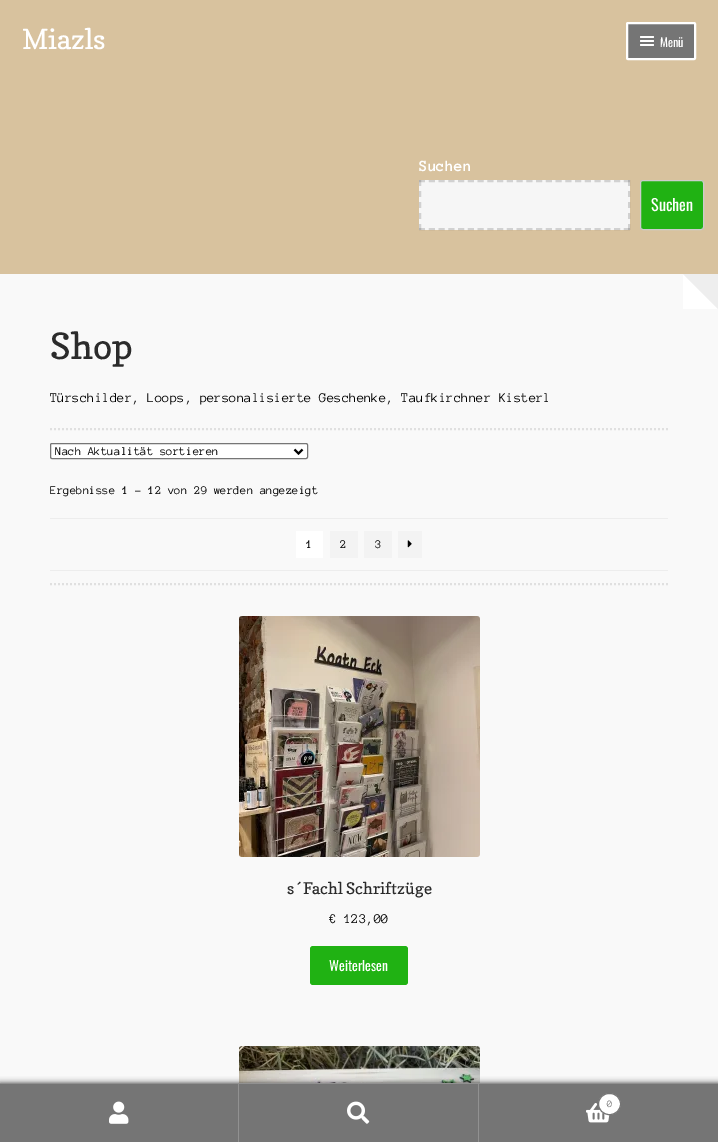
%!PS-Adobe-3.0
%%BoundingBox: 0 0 718 1142
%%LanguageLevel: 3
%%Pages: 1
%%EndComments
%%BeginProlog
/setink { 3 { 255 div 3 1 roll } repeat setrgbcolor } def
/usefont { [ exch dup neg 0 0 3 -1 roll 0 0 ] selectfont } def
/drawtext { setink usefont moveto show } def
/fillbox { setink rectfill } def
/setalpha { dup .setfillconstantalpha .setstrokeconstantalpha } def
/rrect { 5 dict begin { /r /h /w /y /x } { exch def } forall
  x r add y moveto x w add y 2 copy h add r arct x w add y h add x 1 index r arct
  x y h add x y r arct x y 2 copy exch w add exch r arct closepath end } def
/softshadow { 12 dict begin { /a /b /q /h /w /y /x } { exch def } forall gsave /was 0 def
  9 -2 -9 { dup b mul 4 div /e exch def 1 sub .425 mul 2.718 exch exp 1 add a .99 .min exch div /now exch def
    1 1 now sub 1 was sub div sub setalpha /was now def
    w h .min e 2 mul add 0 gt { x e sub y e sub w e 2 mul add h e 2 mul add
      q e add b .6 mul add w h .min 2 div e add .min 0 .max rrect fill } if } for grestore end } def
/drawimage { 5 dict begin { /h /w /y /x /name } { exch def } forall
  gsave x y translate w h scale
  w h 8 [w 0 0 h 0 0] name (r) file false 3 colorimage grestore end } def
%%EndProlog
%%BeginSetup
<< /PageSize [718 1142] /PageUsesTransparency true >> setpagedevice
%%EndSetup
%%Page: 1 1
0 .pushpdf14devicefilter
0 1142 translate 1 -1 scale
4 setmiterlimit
0 0 718 1142 216 194 158 fillbox
(Miazls) 22 49 /Copse-Regular 27.5 255 255 255 drawtext
117 117 117 setink
627 23 68 36 1 rrect gsave fill grestore
255 255 255 setink
2 setlinewidth
stroke
640 36 14 2 1 rrect fill
640 40 14 2 1 rrect fill
(Menü) 660 47 /Oswald-Regular 12 255 255 255 drawtext
640 44 14 2 1 rrect fill
(Suchen) 419 171 /AnonymousPro-Bold 16 255 255 255 drawtext
419 180 211 50 246 246 246 fillbox
209 209 209 setink
[6 3.76] 0 setdash
419 181 moveto 630 181 lineto stroke
0.15 setalpha
0 0 0 setink
[6 5] 0 setdash
629 180 moveto 629 230 lineto stroke
[6 3.76] 0 setdash
419 229 moveto 630 229 lineto stroke
[6 5] 0 setdash
420 180 moveto 420 230 lineto stroke
1 setalpha
32 178 19 setink
640.5 180.5 63 49 2.5 rrect gsave fill grestore
204 204 204 setink
1 setlinewidth
[] 0 setdash
stroke
(Suchen) 651 211 /Oswald-Regular 16 255 255 255 drawtext
0 274 718 809 249 249 249 fillbox
255 255 255 setink
718 309 moveto 683 309 lineto 683 274 lineto closepath fill
238 238 238 setink
718 274 moveto 718 309 lineto 683 274 lineto closepath fill
(Shop) 50 359 /Copse-Regular 36 43 43 43 drawtext
(Türschilder, Loops, personalisierte Geschenke, Taufkirchner Kisterl) 50 402 /AnonymousPro-Regular 13.7 0 0 0 drawtext
224 224 224 setink
2 setlinewidth
[2 2] 0 setdash
50 429 moveto 668 429 lineto stroke
50 584 moveto 668 584 lineto stroke
255 255 255 setink
50.5 443.5 257 15 1.5 rrect gsave fill grestore
118 118 118 setink
1 setlinewidth
[] 0 setdash
stroke
0 0 0 setink
2 setlinewidth
294.5 449.5 moveto 298.5 453.5 lineto 302.5 449.5 lineto stroke
gsave
55 444 236 14 rectclip
(Nach Aktualität sortieren) 55 455 /AnonymousPro-Regular 12 0 0 0 drawtext
grestore
(Ergebnisse 1 – 12 von 29 werden angezeigt) 50 494 /AnonymousPro-Regular 12 0 0 0 drawtext
50 518 618 1 237 237 237 fillbox
50 570 618 1 237 237 237 fillbox
296 531 27 27 255 255 255 fillbox
(1) 306 548 /AnonymousPro-Regular 12 0 0 0 drawtext
330 531 28 27 243 243 243 fillbox
(2) 340 548 /AnonymousPro-Regular 12 0 0 0 drawtext
364 531 28 27 243 243 243 fillbox
(3) 375 548 /AnonymousPro-Regular 12 0 0 0 drawtext
398 531 24 27 243 243 243 fillbox
(assets/img1.rgb) 407 540 5 8 drawimage
(assets/img2.rgb) 239 616 241 241 drawimage
(s´Fachl Schriftzüge) 287 894 /Copse-Regular 16 43 43 43 drawtext
(€ 123,00) 329 923 /AnonymousPro-Regular 13.7 0 0 0 drawtext
32 178 19 setink
310 946 98 39 3 rrect fill
(Weiterlesen) 329 971 /Oswald-Regular 13.7 255 255 255 drawtext
(assets/img3.rgb) 239 1046 241 37 drawimage
0 0 0 setink
0 1083 718 59 0 3 0.7 softshadow
0 1083 718 1 145 145 145 fillbox
0 1084 238 58 117 117 117 fillbox
238 1084 1 58 145 145 145 fillbox
(assets/img4.rgb) 109 1101 20 23 drawimage
239 1084 239 58 117 117 117 fillbox
478 1084 1 58 145 145 145 fillbox
(assets/img5.rgb) 347 1101 23 23 drawimage
479 1084 239 58 117 117 117 fillbox
(assets/img6.rgb) 586 1103 24 20 drawimage
255 255 255 setink
598.5 1093.5 22 21 10.5 rrect gsave fill grestore
117 117 117 setink
1 setlinewidth
stroke
(0) 607 1107 /AnonymousPro-Regular 10 117 117 117 drawtext
.poppdf14devicefilter showpage
%%EOF
